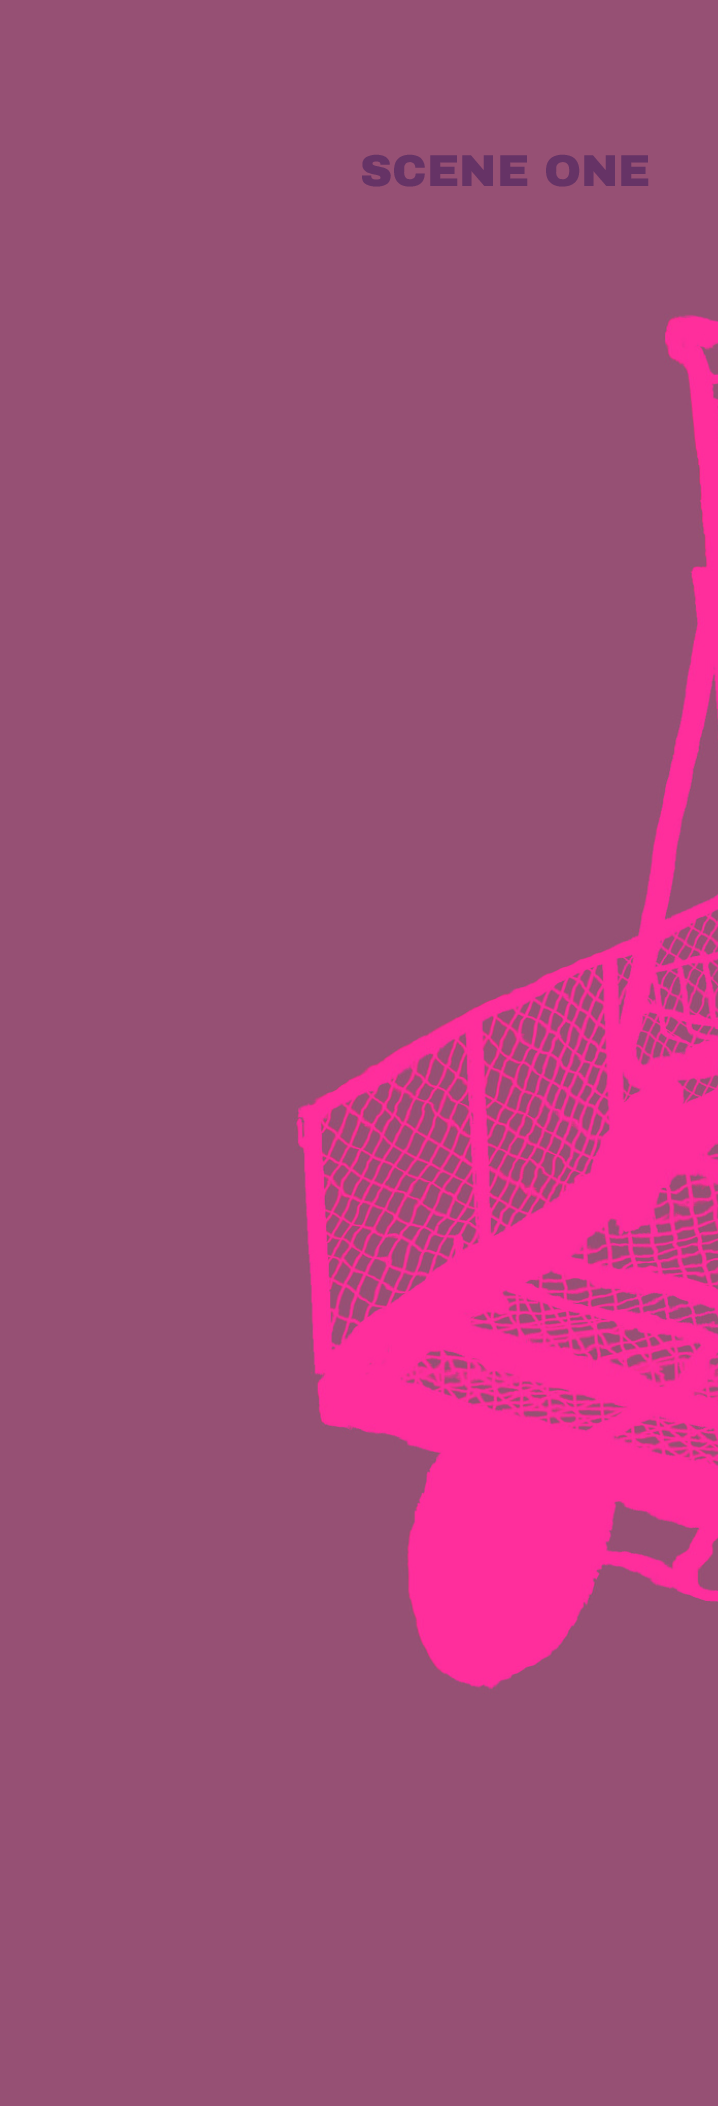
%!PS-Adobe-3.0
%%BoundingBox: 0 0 718 2106
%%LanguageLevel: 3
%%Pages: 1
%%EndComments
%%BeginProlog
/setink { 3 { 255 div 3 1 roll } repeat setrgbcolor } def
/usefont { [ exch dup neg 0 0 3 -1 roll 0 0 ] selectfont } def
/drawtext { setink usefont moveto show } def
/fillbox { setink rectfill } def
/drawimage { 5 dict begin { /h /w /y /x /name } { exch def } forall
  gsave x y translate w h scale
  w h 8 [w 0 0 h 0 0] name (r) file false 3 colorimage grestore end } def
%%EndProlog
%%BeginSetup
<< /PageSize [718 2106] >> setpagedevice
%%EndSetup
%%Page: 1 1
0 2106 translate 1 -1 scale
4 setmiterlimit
0 0 718 2106 255 255 255 fillbox
(assets/img1.rgb) 0 0 718 2106 drawimage
(SCENE ONE) 360 186 /ArchivoBlack-Black 44.75 102 51 102 drawtext
showpage
%%EOF
